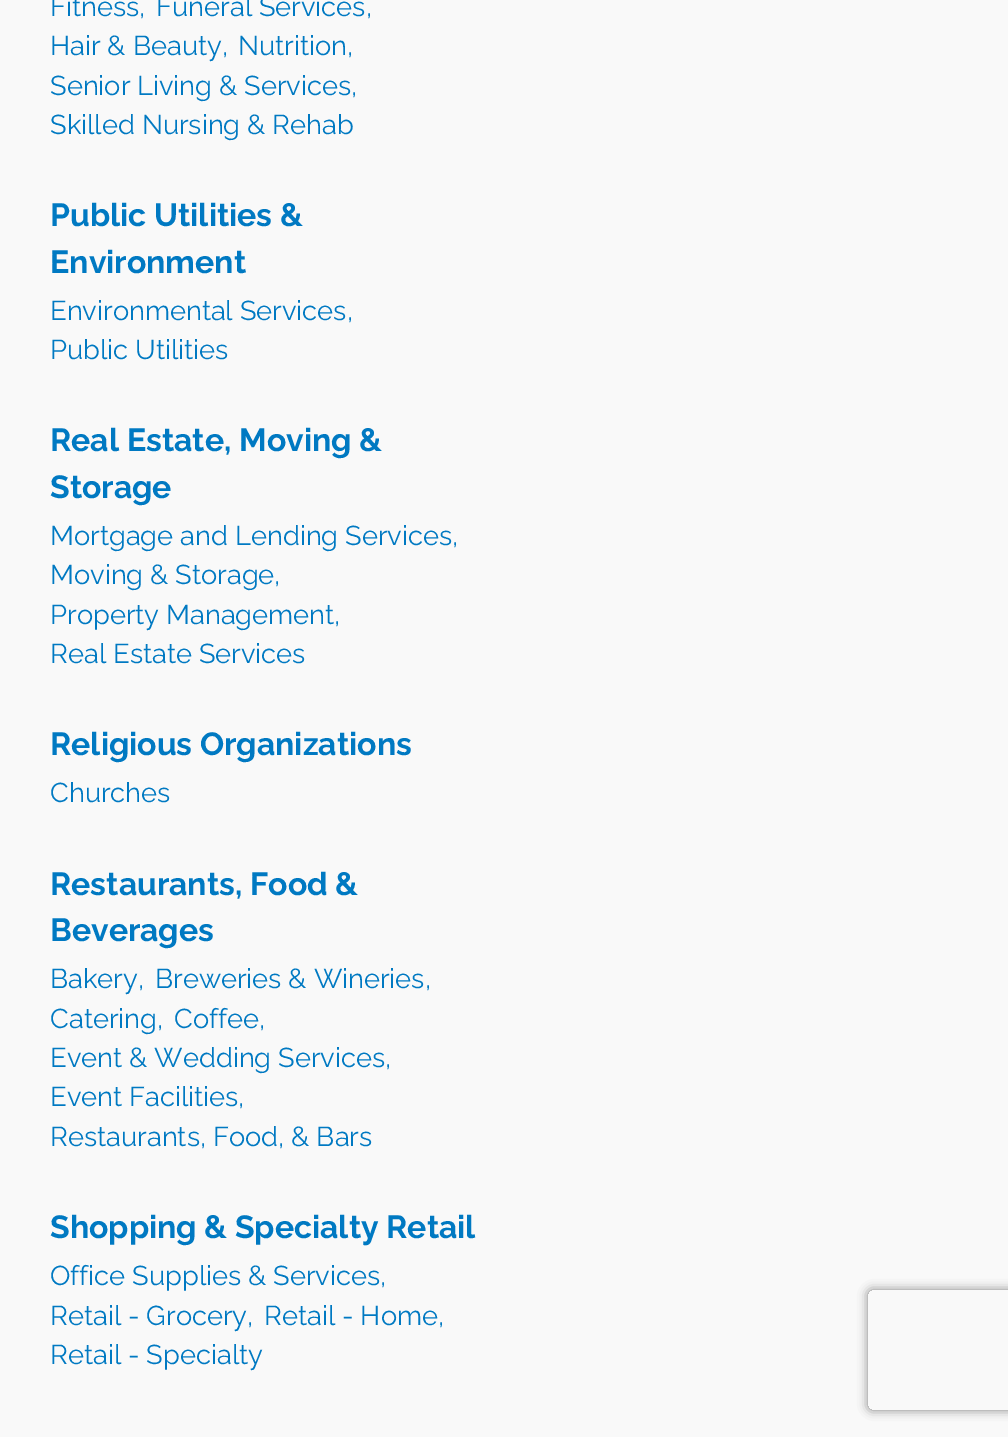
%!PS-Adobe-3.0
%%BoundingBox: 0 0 1008 1437
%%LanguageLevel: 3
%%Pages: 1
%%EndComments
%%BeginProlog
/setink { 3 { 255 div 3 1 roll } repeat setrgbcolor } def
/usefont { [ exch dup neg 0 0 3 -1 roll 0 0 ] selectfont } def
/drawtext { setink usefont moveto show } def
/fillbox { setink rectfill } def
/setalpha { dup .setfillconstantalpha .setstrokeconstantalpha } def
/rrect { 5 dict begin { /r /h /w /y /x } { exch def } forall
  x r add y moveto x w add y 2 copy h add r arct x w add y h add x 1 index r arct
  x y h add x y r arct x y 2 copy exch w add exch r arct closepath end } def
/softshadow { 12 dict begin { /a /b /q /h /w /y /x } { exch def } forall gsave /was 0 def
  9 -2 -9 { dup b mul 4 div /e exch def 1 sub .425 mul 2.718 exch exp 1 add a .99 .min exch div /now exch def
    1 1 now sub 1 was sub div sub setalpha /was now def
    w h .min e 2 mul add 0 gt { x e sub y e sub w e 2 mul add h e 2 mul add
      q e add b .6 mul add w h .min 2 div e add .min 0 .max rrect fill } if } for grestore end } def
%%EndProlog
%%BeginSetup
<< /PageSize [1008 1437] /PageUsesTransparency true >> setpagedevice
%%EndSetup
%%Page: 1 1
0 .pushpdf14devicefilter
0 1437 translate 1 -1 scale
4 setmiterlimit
0 0 1008 1437 249 249 249 fillbox
(Fitness,) 50 16 /Raleway-Regular 27.25 0 121 194 drawtext
(Funeral Services,) 156 16 /Raleway-Regular 27.25 0 121 194 drawtext
(Hair & Beauty,) 50 55 /Raleway-Regular 27.25 0 121 194 drawtext
(Nutrition,) 238 55 /Raleway-Regular 27.25 0 121 194 drawtext
(Senior Living & Services,) 50 95 /Raleway-Regular 27.25 0 121 194 drawtext
(Skilled Nursing & Rehab) 50 134 /Raleway-Regular 27.25 0 121 194 drawtext
(Public Utilities &) 50 226 /Raleway-Bold 32 0 121 194 drawtext
(Environment) 50 273 /Raleway-Bold 32 0 121 194 drawtext
(Environmental Services,) 50 320 /Raleway-Regular 27.25 0 121 194 drawtext
(Public Utilities) 50 359 /Raleway-Regular 27.25 0 121 194 drawtext
(Real Estate, Moving &) 50 451 /Raleway-Bold 32 0 121 194 drawtext
(Storage) 50 498 /Raleway-Bold 32 0 121 194 drawtext
(Mortgage and Lending Services,) 50 545 /Raleway-Regular 27.25 0 121 194 drawtext
(Moving & Storage,) 50 584 /Raleway-Regular 27.25 0 121 194 drawtext
(Property Management,) 50 624 /Raleway-Regular 27.25 0 121 194 drawtext
(Real Estate Services) 50 663 /Raleway-Regular 27.25 0 121 194 drawtext
(Religious Organizations) 50 755 /Raleway-Bold 32 0 121 194 drawtext
(Churches) 50 802 /Raleway-Regular 27.25 0 121 194 drawtext
(Restaurants, Food &) 50 895 /Raleway-Bold 32 0 121 194 drawtext
(Beverages) 50 941 /Raleway-Bold 32 0 121 194 drawtext
(Bakery,) 50 988 /Raleway-Regular 27.25 0 121 194 drawtext
(Breweries & Wineries,) 155 988 /Raleway-Regular 27.25 0 121 194 drawtext
(Catering,) 50 1028 /Raleway-Regular 27.25 0 121 194 drawtext
(Coffee,) 174 1028 /Raleway-Regular 27.25 0 121 194 drawtext
(Event & Wedding Services,) 50 1067 /Raleway-Regular 27.25 0 121 194 drawtext
(Event Facilities,) 50 1106 /Raleway-Regular 27.25 0 121 194 drawtext
(Restaurants, Food, & Bars) 50 1146 /Raleway-Regular 27.25 0 121 194 drawtext
(Shopping & Specialty Retail) 50 1238 /Raleway-Bold 32 0 121 194 drawtext
(Office Supplies & Services,) 50 1285 /Raleway-Regular 27.25 0 121 194 drawtext
(Retail - Grocery,) 50 1325 /Raleway-Regular 27.25 0 121 194 drawtext
(Retail - Home,) 264 1325 /Raleway-Regular 27.25 0 121 194 drawtext
(Retail - Specialty) 50 1364 /Raleway-Regular 27.25 0 121 194 drawtext
gsave
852 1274 moveto 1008 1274 lineto 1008 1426 lineto 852 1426 lineto closepath 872 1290 moveto 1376 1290 lineto 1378 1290 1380 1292 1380 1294 curveto 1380 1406 lineto 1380 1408 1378 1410 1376 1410 curveto 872 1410 lineto 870 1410 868 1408 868 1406 curveto 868 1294 lineto 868 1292 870 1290 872 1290 curveto closepath eoclip newpath
128 128 128 setink
868 1290 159 120 4 5 1 softshadow
grestore
.poppdf14devicefilter showpage
%%EOF
